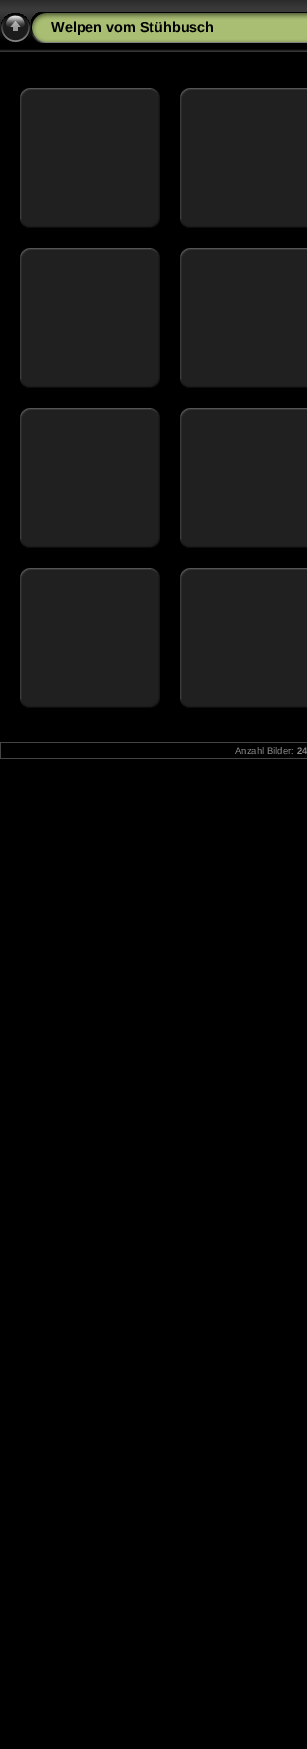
%!PS-Adobe-3.0
%%BoundingBox: 0 0 307 1749
%%LanguageLevel: 3
%%Pages: 1
%%EndComments
%%BeginProlog
/setink { 3 { 255 div 3 1 roll } repeat setrgbcolor } def
/usefont { [ exch dup neg 0 0 3 -1 roll 0 0 ] selectfont } def
/drawtext { setink usefont moveto show } def
/fillbox { setink rectfill } def
/drawimage { 5 dict begin { /h /w /y /x /name } { exch def } forall
  gsave x y translate w h scale
  w h 8 [w 0 0 h 0 0] name (r) file false 3 colorimage grestore end } def
%%EndProlog
%%BeginSetup
<< /PageSize [307 1749] >> setpagedevice
%%EndSetup
%%Page: 1 1
0 1749 translate 1 -1 scale
4 setmiterlimit
0 0 307 1749 0 0 0 fillbox
(assets/img1.rgb) 0 0 307 52 drawimage
(assets/img2.rgb) 1 13 29 29 drawimage
(assets/img3.rgb) 31 12 20 31 drawimage
(assets/img4.rgb) 51 12 256 31 drawimage
(Welpen vom Stühbusch) 51 32 /LiberationSans-Bold 14.4 0 0 0 drawtext
(assets/img5.rgb) 20 88 140 140 drawimage
(assets/img6.rgb) 180 88 127 140 drawimage
(assets/img5.rgb) 20 248 140 140 drawimage
(assets/img6.rgb) 180 248 127 140 drawimage
(assets/img5.rgb) 20 408 140 140 drawimage
(assets/img6.rgb) 180 408 127 140 drawimage
(assets/img5.rgb) 20 568 140 140 drawimage
(assets/img6.rgb) 180 568 127 140 drawimage
0 742 307 1 68 68 68 fillbox
0 758 307 1 68 68 68 fillbox
0 742 1 17 68 68 68 fillbox
(Anzahl Bilder:) 235 754 /LiberationSans-Regular 9.5 136 136 136 drawtext
(24) 297 754 /LiberationSans-Bold 9.5 136 136 136 drawtext
showpage
%%EOF
